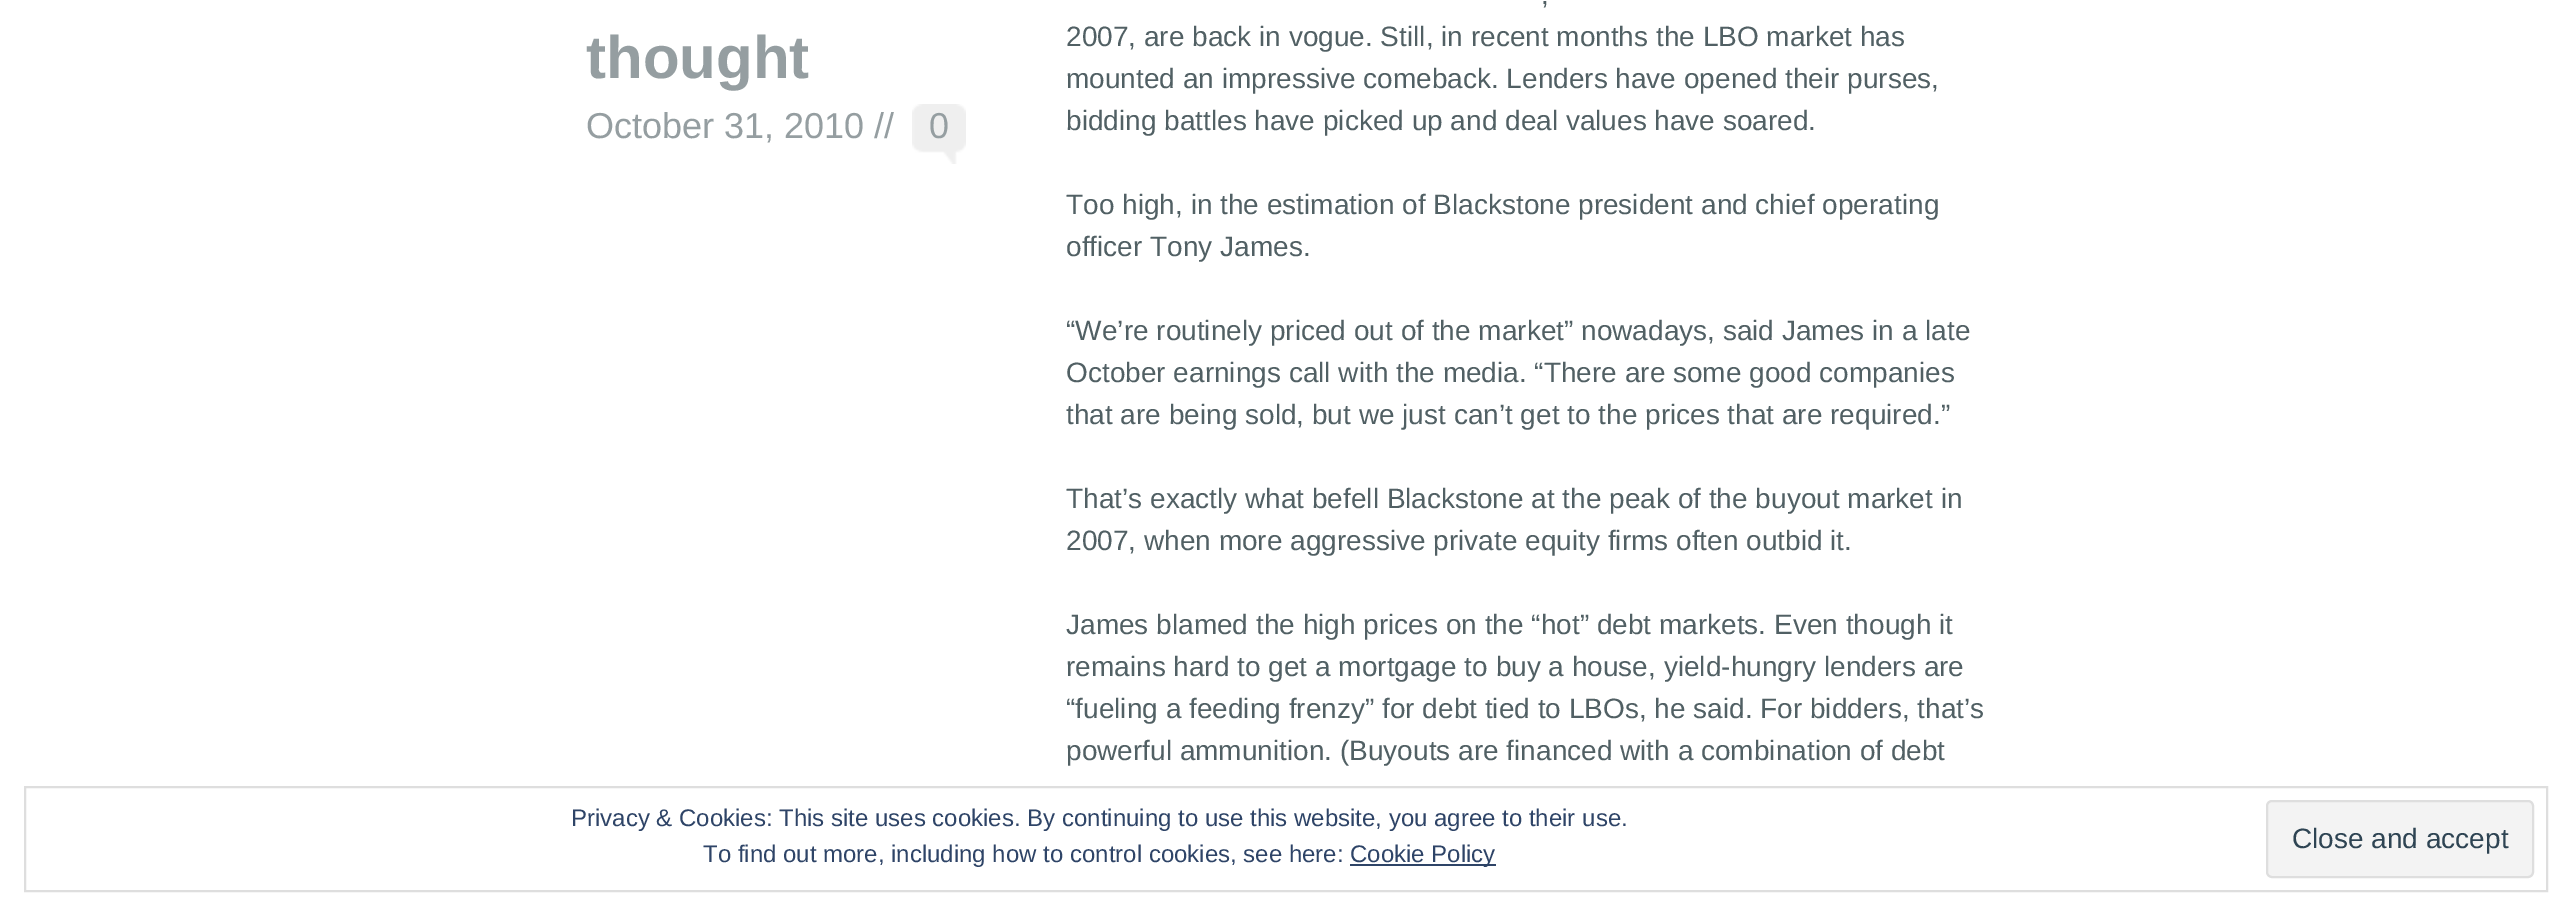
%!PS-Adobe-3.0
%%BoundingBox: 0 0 2571 915
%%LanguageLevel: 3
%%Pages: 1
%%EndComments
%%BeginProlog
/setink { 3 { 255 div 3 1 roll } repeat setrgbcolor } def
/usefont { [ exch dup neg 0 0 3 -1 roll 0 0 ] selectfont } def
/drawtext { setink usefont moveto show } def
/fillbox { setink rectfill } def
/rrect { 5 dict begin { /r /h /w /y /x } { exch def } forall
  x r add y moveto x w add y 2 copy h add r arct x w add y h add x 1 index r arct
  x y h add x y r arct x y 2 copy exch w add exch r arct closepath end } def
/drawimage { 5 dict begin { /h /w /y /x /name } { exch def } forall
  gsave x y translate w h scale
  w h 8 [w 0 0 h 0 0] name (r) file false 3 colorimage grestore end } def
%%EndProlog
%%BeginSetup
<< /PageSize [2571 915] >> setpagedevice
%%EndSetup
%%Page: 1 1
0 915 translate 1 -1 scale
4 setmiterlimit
0 0 2571 915 255 255 255 fillbox
(thought) 586 78 /LiberationSans-Bold 60 149 158 161 drawtext
(October 31, 2010 //) 586 138 /LiberationSans-Regular 36 149 158 161 drawtext
(assets/img1.rgb) 912 104 54 60 drawimage
(0) 929 138 /LiberationSans-Regular 36 149 158 161 drawtext
(,) 1541 4 /LiberationSans-Regular 28 81 96 100 drawtext
(2007, are back in vogue. Still, in recent months the LBO market has) 1066 46 /LiberationSans-Regular 28 81 96 100 drawtext
(mounted an impressive comeback. Lenders have opened their purses,) 1066 88 /LiberationSans-Regular 28 81 96 100 drawtext
(bidding battles have picked up and deal values have soared.) 1066 130 /LiberationSans-Regular 28 81 96 100 drawtext
(Too high, in the estimation of Blackstone president and chief operating) 1066 214 /LiberationSans-Regular 28 81 96 100 drawtext
(officer Tony James.) 1066 256 /LiberationSans-Regular 28 81 96 100 drawtext
(“We’re routinely priced out of the market” nowadays, said James in a late) 1066 340 /LiberationSans-Regular 28 81 96 100 drawtext
(October earnings call with the media. “There are some good companies) 1066 382 /LiberationSans-Regular 28 81 96 100 drawtext
(that are being sold, but we just can’t get to the prices that are required.”) 1066 424 /LiberationSans-Regular 28 81 96 100 drawtext
(That’s exactly what befell Blackstone at the peak of the buyout market in) 1066 508 /LiberationSans-Regular 28 81 96 100 drawtext
(2007, when more aggressive private equity firms often outbid it.) 1066 550 /LiberationSans-Regular 28 81 96 100 drawtext
(James blamed the high prices on the “hot” debt markets. Even though it) 1066 634 /LiberationSans-Regular 28 81 96 100 drawtext
(remains hard to get a mortgage to buy a house, yield-hungry lenders are) 1066 676 /LiberationSans-Regular 28 81 96 100 drawtext
(“fueling a feeding frenzy” for debt tied to LBOs, he said. For bidders, that’s) 1066 718 /LiberationSans-Regular 28 81 96 100 drawtext
(powerful ammunition. \(Buyouts are financed with a combination of debt) 1066 760 /LiberationSans-Regular 28 81 96 100 drawtext
222 222 222 setink
2 setlinewidth
25 787 2522 104 rectstroke
(Privacy & Cookies: This site uses cookies. By continuing to use this website, you agree to their use.) 571 826 /LiberationSans-Regular 24 46 68 103 drawtext
(To find out more, including how to control cookies, see here:) 703 862 /LiberationSans-Regular 24 46 68 103 drawtext
1350 864 146 2 46 68 103 fillbox
(Cookie Policy) 1350 862 /LiberationSans-Regular 24 46 68 103 drawtext
243 243 243 setink
2267 801 266 76 5 rrect gsave fill grestore
222 222 222 setink
stroke
(Close and accept) 2292 848 /LiberationSans-Regular 28 46 68 83 drawtext
showpage
%%EOF
